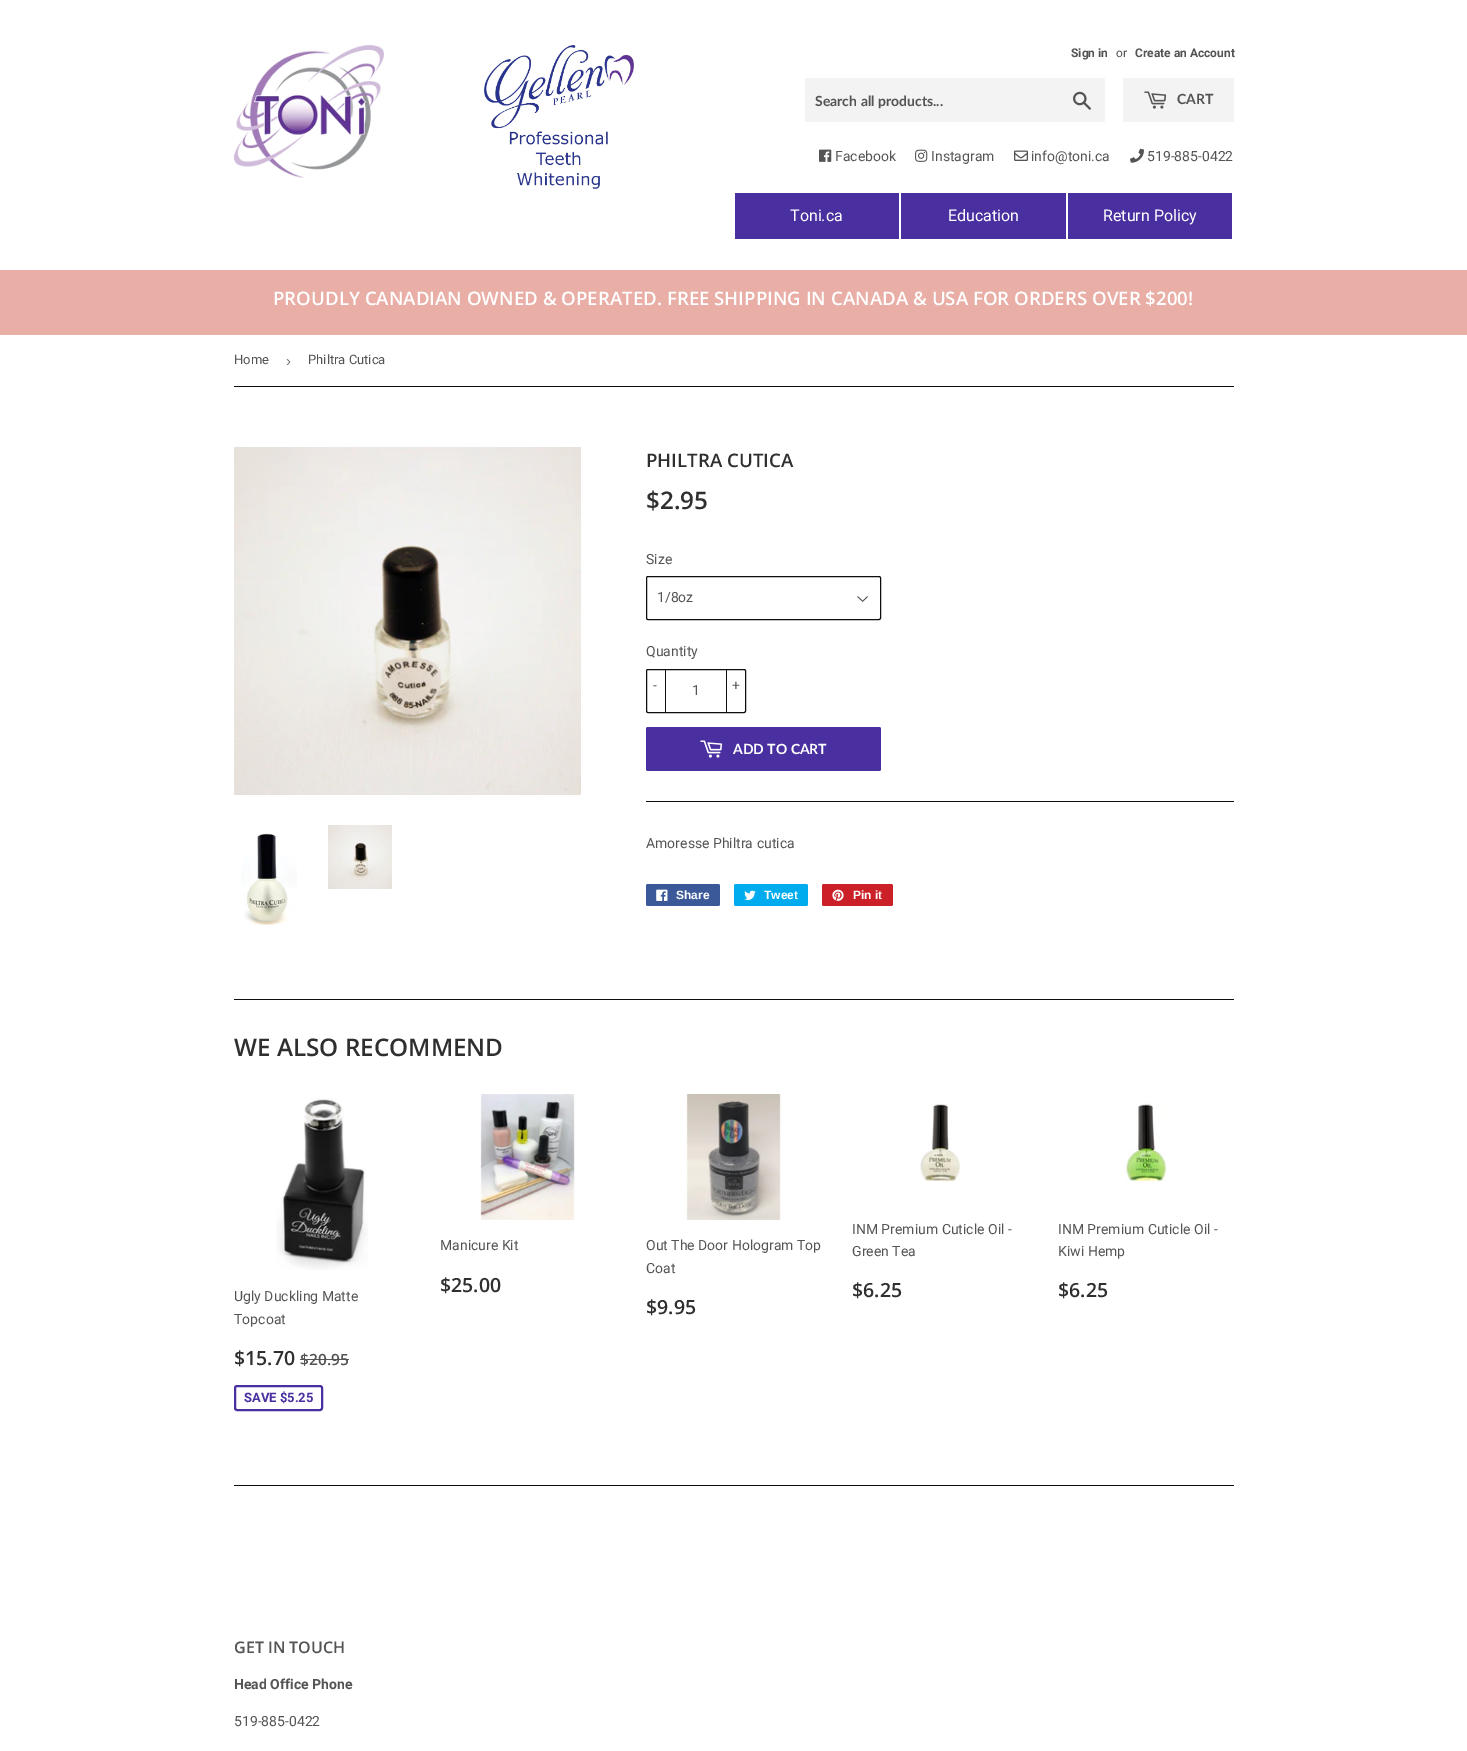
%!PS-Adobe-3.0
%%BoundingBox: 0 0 1467 1751
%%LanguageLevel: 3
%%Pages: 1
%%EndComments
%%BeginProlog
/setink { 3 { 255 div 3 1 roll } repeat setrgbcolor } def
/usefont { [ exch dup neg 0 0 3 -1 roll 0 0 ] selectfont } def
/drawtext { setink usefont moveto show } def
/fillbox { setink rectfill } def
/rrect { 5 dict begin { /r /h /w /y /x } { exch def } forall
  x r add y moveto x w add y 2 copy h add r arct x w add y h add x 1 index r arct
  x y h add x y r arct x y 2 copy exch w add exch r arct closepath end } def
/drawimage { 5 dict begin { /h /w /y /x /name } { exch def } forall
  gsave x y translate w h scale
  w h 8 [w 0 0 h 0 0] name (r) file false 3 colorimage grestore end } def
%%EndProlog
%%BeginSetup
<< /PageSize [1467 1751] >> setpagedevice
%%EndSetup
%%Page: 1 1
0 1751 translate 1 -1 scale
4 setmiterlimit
0 0 1467 1751 255 255 255 fillbox
(assets/img1.rgb) 234 45 150 133 drawimage
(assets/img2.rgb) 484 45 150 144 drawimage
(Sign in) 1071 57 /Roboto-Bold 12 84 84 84 drawtext
(or) 1116 57 /Roboto-Regular 12 84 84 84 drawtext
(Create an Account) 1135 57 /Roboto-Bold 12 84 84 84 drawtext
243 243 243 setink
805 78 300 44 2 rrect fill
(Search all products...) 815 106 /Lato-Bold 14 84 84 84 drawtext
(assets/img3.rgb) 1073 91 18 19 drawimage
243 243 243 setink
1123 78 111 44 2 rrect fill
(assets/img4.rgb) 1144 91 23 18 drawimage
(CART) 1177 104 /Lato-Bold 14 84 84 84 drawtext
(assets/img5.rgb) 819 149 13 13 drawimage
(Facebook) 835 161 /Roboto-Regular 14 84 84 84 drawtext
(assets/img6.rgb) 915 149 13 13 drawimage
(Instagram) 931 161 /Roboto-Regular 14 84 84 84 drawtext
(assets/img7.rgb) 1014 150 14 11 drawimage
(info@toni.ca) 1031 161 /Roboto-Regular 14 84 84 84 drawtext
(assets/img8.rgb) 1130 148 14 15 drawimage
(519-885-0422) 1147 161 /Roboto-Regular 14 84 84 84 drawtext
735 193 164 46 73 47 159 fillbox
(Toni.ca) 790 221 /Roboto-Regular 16 255 255 255 drawtext
901 193 165 46 73 47 159 fillbox
(Education) 948 221 /Roboto-Regular 16 255 255 255 drawtext
1068 193 164 46 73 47 159 fillbox
(Return Policy) 1103 221 /Roboto-Regular 16 255 255 255 drawtext
0 270 1467 65 233 174 166 fillbox
(PROUDLY CANADIAN OWNED & OPERATED. FREE SHIPPING IN CANADA & USA FOR ORDERS OVER $200!) 273 305 /OpenSans-SemiBold 18.65 255 255 255 drawtext
234 386 1000 1 18 13 13 fillbox
(Home) 234 364 /Roboto-Regular 13 84 84 84 drawtext
(›) 286 366 /LiberationSans-Regular 15 118 118 118 drawtext
(Philtra Cutica) 308 364 /Roboto-Regular 13 84 84 84 drawtext
(assets/img9.rgb) 234 447 347 348 drawimage
(assets/img10.rgb) 241 833 56 93 drawimage
(assets/img11.rgb) 328 825 64 64 drawimage
(PHILTRA CUTICA) 646 467 /OpenSans-SemiBold 18.65 47 47 47 drawtext
($2.95) 646 509 /OpenSans-SemiBold 24.25 47 47 47 drawtext
(Size) 646 564 /Roboto-Regular 14 84 84 84 drawtext
(assets/img12.rgb) 857 596 11 6 drawimage
18 13 13 setink
646.5 576.5 234 43 1.5 rrect stroke
(1/8oz) 657 602 /Roboto-Regular 14 84 84 84 drawtext
(Quantity) 646 656 /Roboto-Regular 14 84 84 84 drawtext
18 13 13 setink
646.5 669.5 99 43 1.5 rrect stroke
665 669 1 44 18 13 13 fillbox
(-) 653 690 /Roboto-Regular 14 84 84 84 drawtext
(1) 692 695 /Roboto-Regular 14 84 84 84 drawtext
726 669 1 44 18 13 13 fillbox
(+) 732 690 /Roboto-Regular 14 84 84 84 drawtext
73 47 159 setink
646 727 235 44 2 rrect fill
(assets/img13.rgb) 700 740 23 18 drawimage
(ADD TO CART) 733 754 /Lato-Bold 14 255 255 255 drawtext
646 801 588 1 18 13 13 fillbox
(Amoresse Philtra cutica) 646 848 /Roboto-Regular 14 84 84 84 drawtext
59 89 152 setink
646 884 74 22 2 rrect fill
(assets/img14.rgb) 656 889 12 12 drawimage
(Share) 676 899 /LiberationSans-Bold 12 255 255 255 drawtext
0 172 237 setink
734 884 74 22 2 rrect fill
(assets/img15.rgb) 744 890 12 10 drawimage
(Tweet) 764 899 /LiberationSans-Bold 12 255 255 255 drawtext
203 32 39 setink
822 884 71 22 2 rrect fill
(assets/img16.rgb) 832 889 12 12 drawimage
(Pin it) 853 899 /LiberationSans-Bold 12 255 255 255 drawtext
234 999 1000 1 18 13 13 fillbox
(WE ALSO RECOMMEND) 234 1056 /OpenSans-SemiBold 24.25 47 47 47 drawtext
(assets/img17.rgb) 480 1094 95 126 drawimage
(Manicure Kit) 440 1250 /Roboto-Regular 14 84 84 84 drawtext
($25.00) 440 1292 /OpenSans-SemiBold 19.5 47 47 47 drawtext
(assets/img18.rgb) 686 1094 95 126 drawimage
(Out The Door Hologram Top) 646 1250 /Roboto-Regular 14 84 84 84 drawtext
(Coat) 646 1273 /Roboto-Regular 14 84 84 84 drawtext
($9.95) 646 1314 /OpenSans-SemiBold 19.5 47 47 47 drawtext
(assets/img19.rgb) 920 1103 40 79 drawimage
(INM Premium Cuticle Oil -) 852 1234 /Roboto-Regular 14 84 84 84 drawtext
(Green Tea) 852 1256 /Roboto-Regular 14 84 84 84 drawtext
($6.25) 852 1297 /OpenSans-SemiBold 19.5 47 47 47 drawtext
(assets/img20.rgb) 1125 1102 42 80 drawimage
(INM Premium Cuticle Oil -) 1058 1234 /Roboto-Regular 14 84 84 84 drawtext
(Kiwi Hemp) 1058 1256 /Roboto-Regular 14 84 84 84 drawtext
($6.25) 1058 1297 /OpenSans-SemiBold 19.5 47 47 47 drawtext
(assets/img21.rgb) 276 1098 92 172 drawimage
(Ugly Duckling Matte) 234 1301 /Roboto-Regular 14 84 84 84 drawtext
(Topcoat) 234 1324 /Roboto-Regular 14 84 84 84 drawtext
($15.70) 234 1365 /OpenSans-SemiBold 19.5 47 47 47 drawtext
($20.95) 300 1365 /OpenSans-SemiBold 15.5 84 84 84 drawtext
300 1359 49 1 84 84 84 fillbox
73 47 159 setink
2 setlinewidth
235 1386 87 24 2 rrect stroke
(SAVE $5.25) 244 1402 /Roboto-Bold 13 73 47 159 drawtext
234 1485 1000 1 18 13 13 fillbox
(GET IN TOUCH) 234 1653 /OpenSans-SemiBold 16 84 84 84 drawtext
(Head Office Phone) 234 1689 /Roboto-Bold 14 84 84 84 drawtext
(519-885-0422) 234 1726 /Roboto-Regular 14 84 84 84 drawtext
showpage
%%EOF
